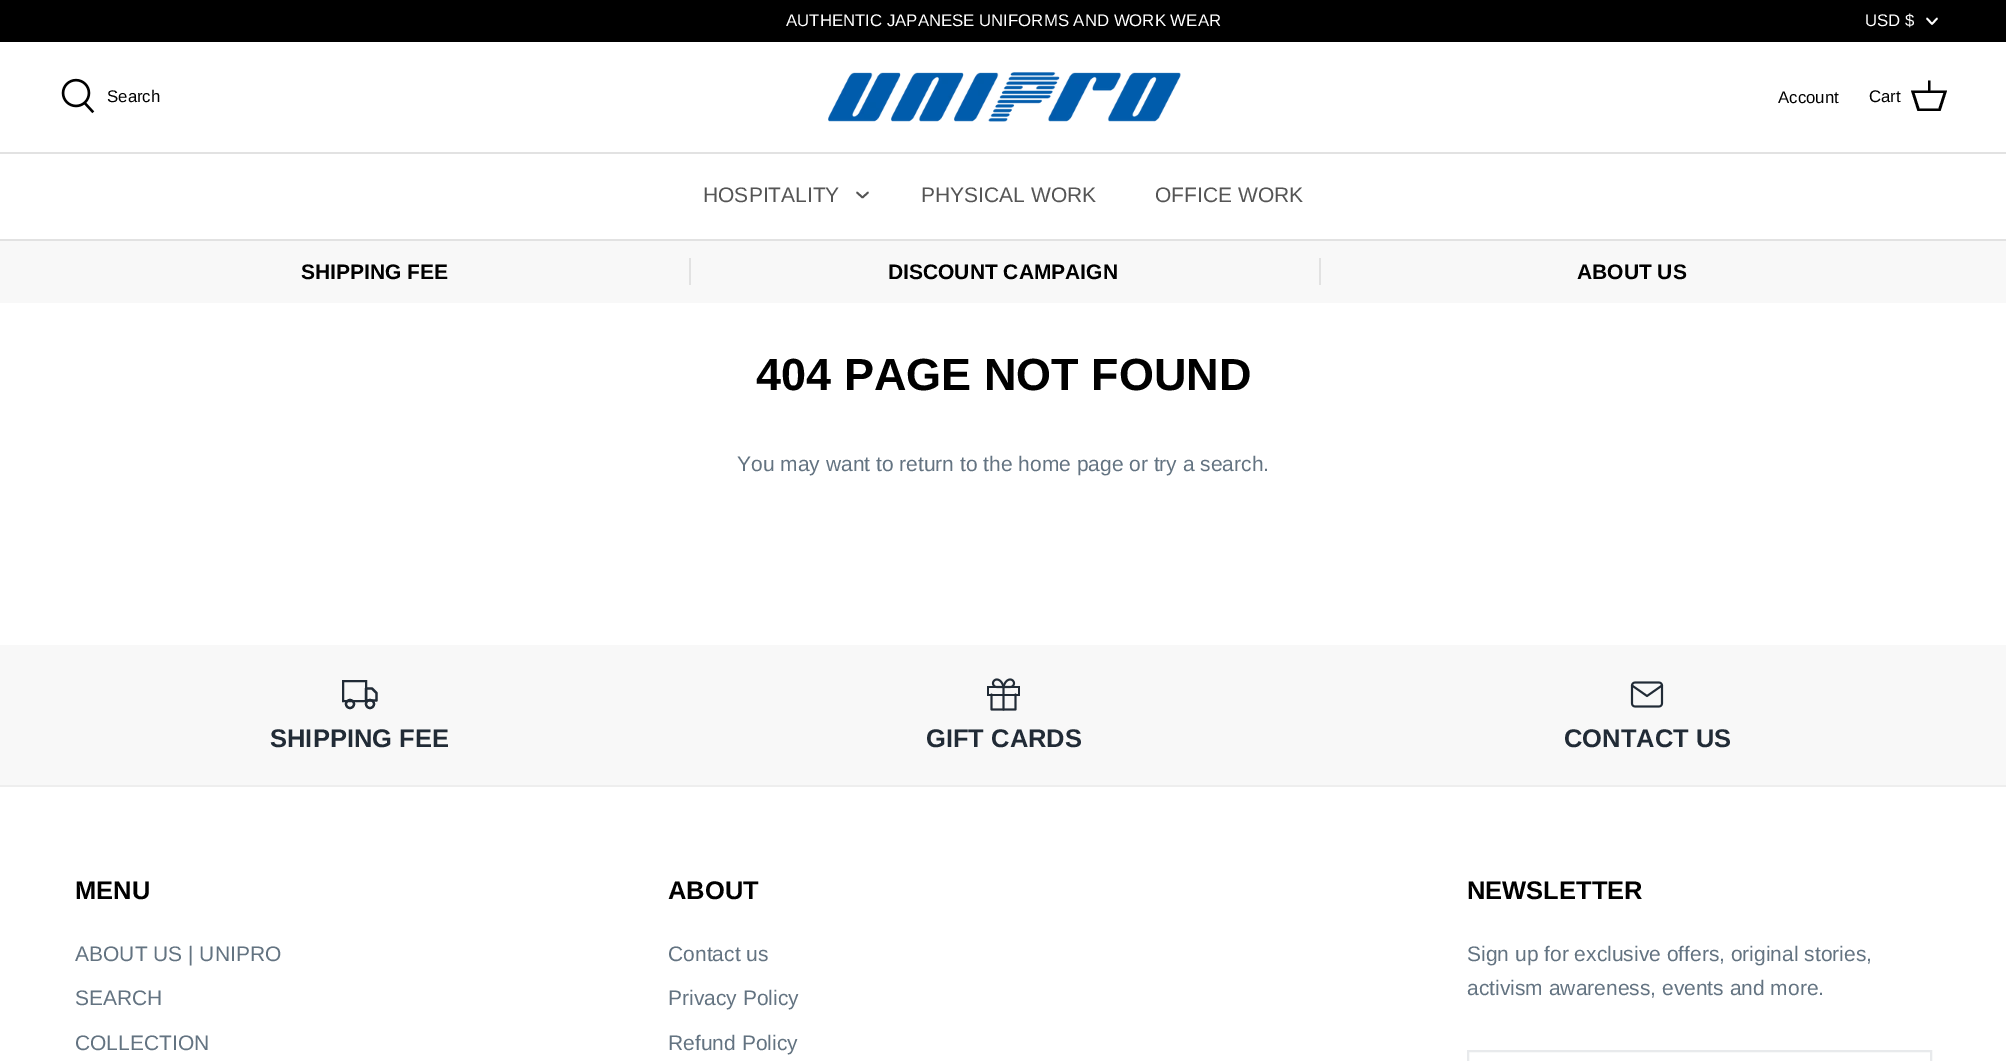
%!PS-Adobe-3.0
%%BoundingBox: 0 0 2006 1061
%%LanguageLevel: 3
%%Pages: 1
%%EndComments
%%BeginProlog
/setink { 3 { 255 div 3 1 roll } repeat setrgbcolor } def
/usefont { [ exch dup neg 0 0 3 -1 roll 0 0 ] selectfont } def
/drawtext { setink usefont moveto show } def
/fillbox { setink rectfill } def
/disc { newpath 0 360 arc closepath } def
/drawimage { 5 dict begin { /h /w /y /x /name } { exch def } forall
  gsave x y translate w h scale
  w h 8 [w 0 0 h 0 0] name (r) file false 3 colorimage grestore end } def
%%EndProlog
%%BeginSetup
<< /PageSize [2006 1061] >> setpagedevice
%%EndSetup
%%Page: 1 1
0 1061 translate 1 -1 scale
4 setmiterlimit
0 0 2006 1061 255 255 255 fillbox
0 0 2006 42 0 0 0 fillbox
(AUTHENTIC JAPANESE UNIFORMS AND WORK WEAR) 786 26 /LiberationSans-Regular 16.8 255 255 255 drawtext
(USD $) 1865 26 /LiberationSans-Regular 16.8 255 255 255 drawtext
1.8 setlinewidth
1 setlinecap
1 setlinejoin
1927 18.5 moveto 1932 24 lineto 1937 18.5 lineto stroke
0 152 2006 2 226 226 226 fillbox
(assets/img1.rgb) 61 78 34 36 drawimage
(Search) 107 102 /LiberationSans-Regular 16.8 0 0 0 drawtext
(assets/img2.rgb) 828 72 353 50 drawimage
(Account) 1778 103 /LiberationSans-Regular 16.8 0 0 0 drawtext
(Cart) 1869 102 /LiberationSans-Regular 16.8 0 0 0 drawtext
1928 90.5 moveto 1928 80.5 lineto 1930.5 80.5 lineto 1930.5 90.5 lineto 1947 90.5 lineto 1940.5 111 lineto 1917.5 111 lineto 1911 90.5 lineto closepath 1914.5 93 moveto 1919.5 108.5 lineto 1938.5 108.5 lineto 1943.5 93 lineto closepath fill
0 239 2006 2 226 226 226 fillbox
(HOSPITALITY) 703 202 /LiberationSans-Regular 21 85 85 85 drawtext
857 192.5 moveto 862.5 197.5 lineto 868 192.5 lineto stroke
(PHYSICAL WORK) 921 202 /LiberationSans-Regular 21 85 85 85 drawtext
(OFFICE WORK) 1155 202 /LiberationSans-Regular 21 85 85 85 drawtext
0 241 2006 62 248 248 248 fillbox
(SHIPPING FEE) 301 279 /LiberationSans-Bold 21 0 0 0 drawtext
689 258 2 27 226 226 226 fillbox
(DISCOUNT CAMPAIGN) 888 279 /LiberationSans-Bold 21 0 0 0 drawtext
1319 258 2 27 226 226 226 fillbox
(ABOUT US) 1577 279 /LiberationSans-Bold 21 0 0 0 drawtext
(404 PAGE NOT FOUND) 756 390 /LiberationSans-Bold 45 0 0 0 drawtext
(You may want to return to the home page or try a search.) 737 471 /LiberationSans-Regular 21 99 115 129 drawtext
0 645 2006 140 248 248 248 fillbox
33 43 54 setink
2 setlinewidth
0 setlinecap
0 setlinejoin
343 681 23 20 rectstroke
2.2 setlinewidth
1 setlinecap
1 setlinejoin
366 688.5 moveto 372 688.5 lineto 376.5 693 lineto 376.5 700.5 lineto 366 700.5 lineto closepath stroke
0 setlinecap
0 setlinejoin
350 704 4 disc stroke
370 704 4 disc stroke
(SHIPPING FEE) 270 747 /LiberationSans-Bold 25.5 33 43 54 drawtext
(assets/img3.rgb) 987 678 33 33 drawimage
(GIFT CARDS) 926 747 /LiberationSans-Bold 25.5 33 43 54 drawtext
(assets/img4.rgb) 1630 681 34 27 drawimage
(CONTACT US) 1564 747 /LiberationSans-Bold 25.5 33 43 54 drawtext
0 785 2006 2 238 238 238 fillbox
(MENU) 75 899 /LiberationSans-Bold 25.5 0 0 0 drawtext
(ABOUT US | UNIPRO) 75 961 /LiberationSans-Regular 21 99 115 129 drawtext
(SEARCH) 75 1005 /LiberationSans-Regular 21 99 115 129 drawtext
(COLLECTION) 75 1050 /LiberationSans-Regular 21 99 115 129 drawtext
(ABOUT) 668 899 /LiberationSans-Bold 25.5 0 0 0 drawtext
(Contact us) 668 961 /LiberationSans-Regular 21 99 115 129 drawtext
(Privacy Policy) 668 1005 /LiberationSans-Regular 21 99 115 129 drawtext
(Refund Policy) 668 1050 /LiberationSans-Regular 21 99 115 129 drawtext
(NEWSLETTER) 1467 899 /LiberationSans-Bold 25.5 0 0 0 drawtext
(Sign up for exclusive offers, original stories,) 1467 961 /LiberationSans-Regular 21 99 115 129 drawtext
(activism awareness, events and more.) 1467 995 /LiberationSans-Regular 21 99 115 129 drawtext
232 234 236 setink
2 setlinewidth
1468 1051 463 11 rectstroke
showpage
%%EOF
